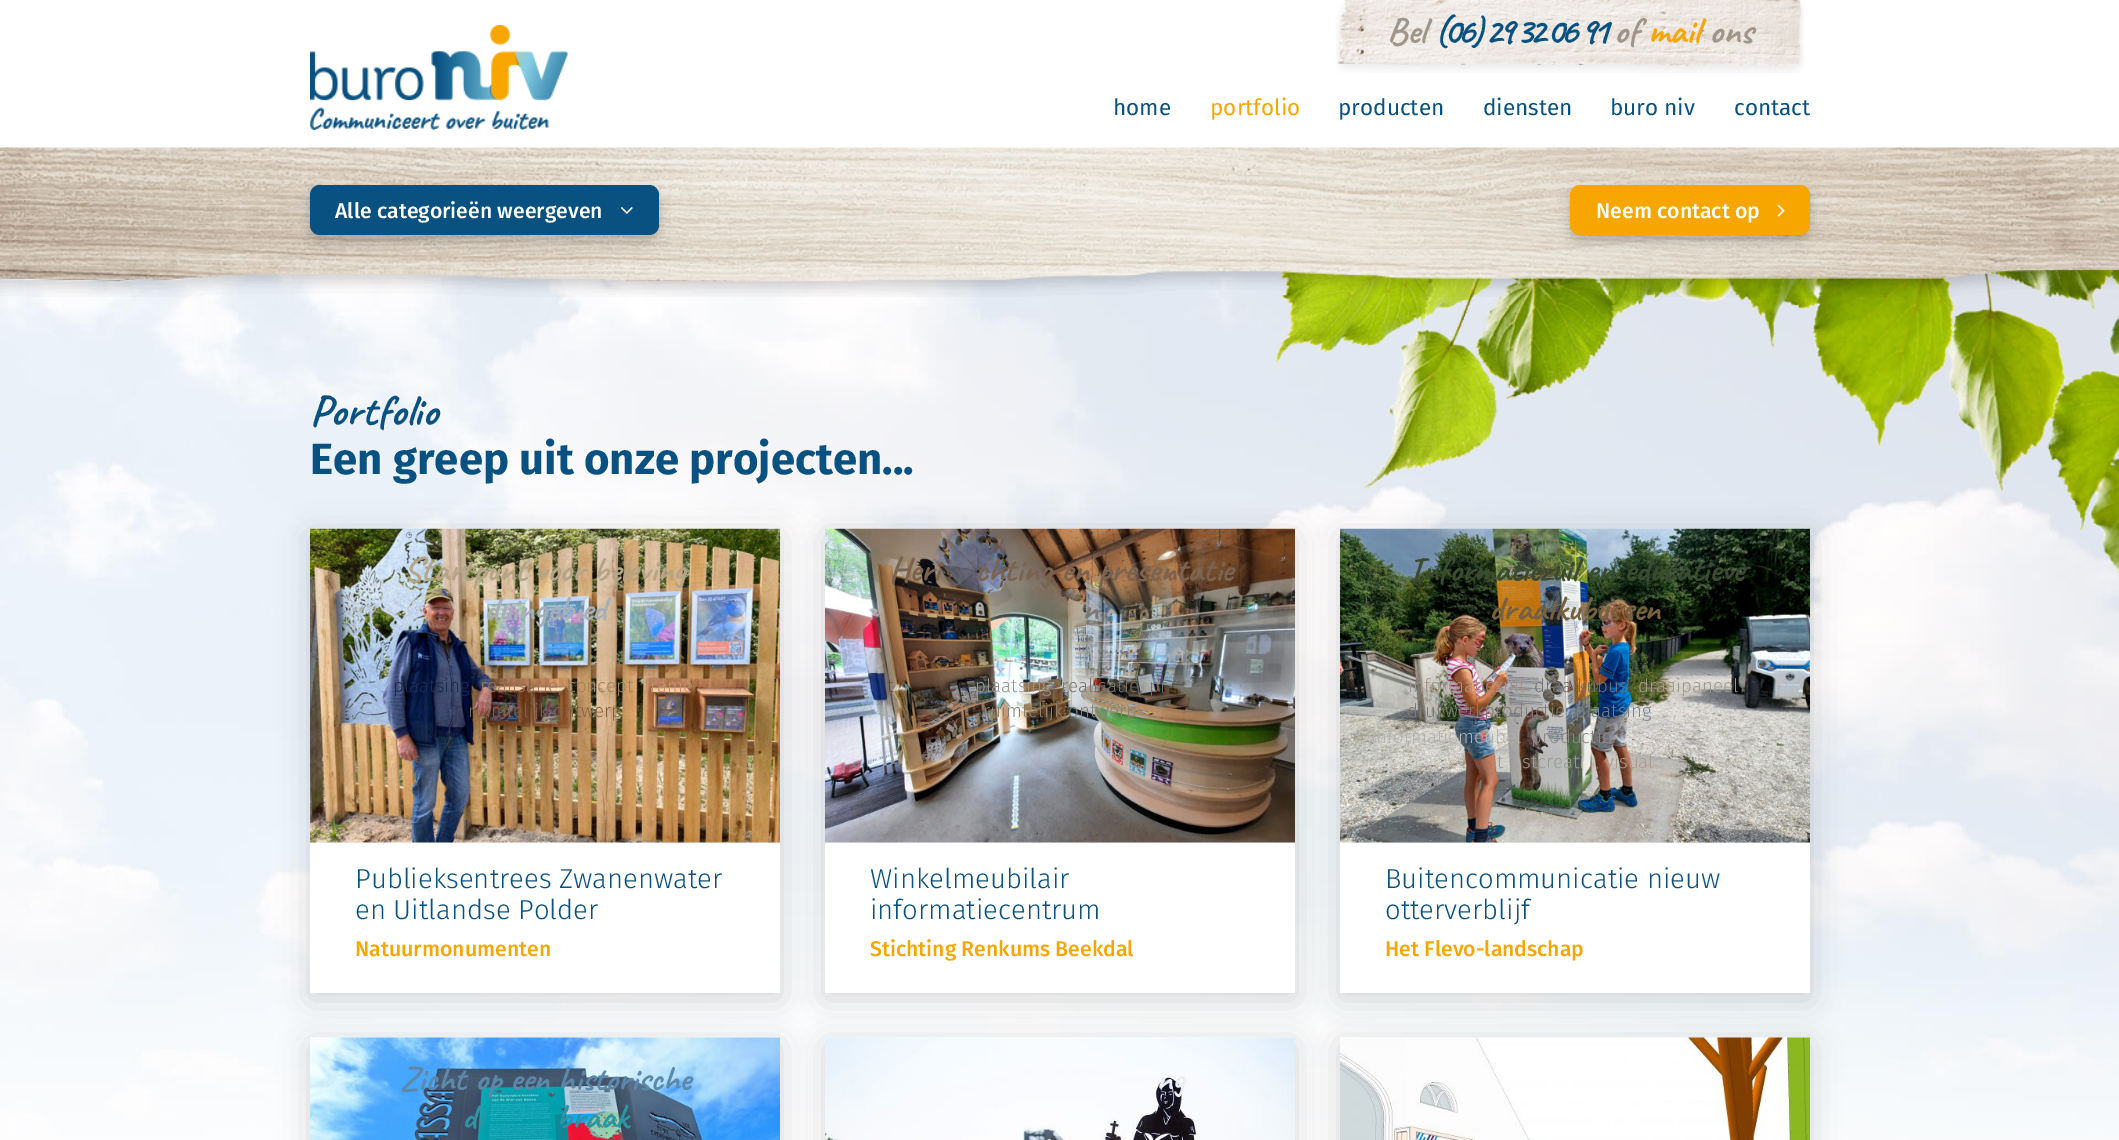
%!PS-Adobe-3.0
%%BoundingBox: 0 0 2119 1140
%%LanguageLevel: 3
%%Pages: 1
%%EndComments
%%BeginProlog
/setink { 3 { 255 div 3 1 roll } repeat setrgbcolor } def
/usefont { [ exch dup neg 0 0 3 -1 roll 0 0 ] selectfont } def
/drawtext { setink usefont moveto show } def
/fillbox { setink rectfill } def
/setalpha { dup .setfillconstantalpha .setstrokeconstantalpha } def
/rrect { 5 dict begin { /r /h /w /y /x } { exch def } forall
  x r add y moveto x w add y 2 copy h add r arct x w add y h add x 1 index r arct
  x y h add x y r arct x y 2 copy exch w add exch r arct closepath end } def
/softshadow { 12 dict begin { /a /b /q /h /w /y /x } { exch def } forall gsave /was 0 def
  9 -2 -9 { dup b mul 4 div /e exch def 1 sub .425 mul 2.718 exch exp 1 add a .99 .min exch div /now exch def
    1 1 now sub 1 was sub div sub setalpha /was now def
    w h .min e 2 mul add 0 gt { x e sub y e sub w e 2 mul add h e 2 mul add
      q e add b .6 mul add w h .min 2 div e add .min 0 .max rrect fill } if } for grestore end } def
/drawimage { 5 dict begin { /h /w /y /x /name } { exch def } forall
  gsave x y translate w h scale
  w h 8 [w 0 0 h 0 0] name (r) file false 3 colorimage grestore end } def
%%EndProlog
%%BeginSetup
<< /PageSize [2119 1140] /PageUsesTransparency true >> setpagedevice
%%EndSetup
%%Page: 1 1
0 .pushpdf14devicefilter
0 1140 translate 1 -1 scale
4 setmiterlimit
0 0 2119 1140 255 255 255 fillbox
(assets/img1.rgb) 310 25 258 105 drawimage
(assets/img2.rgb) 1336 0 468 73 drawimage
(Bel) 1387 43 /Caveat-Bold 37.5 160 149 139 drawtext
9 81 129 setink
1435 43 moveto -3.75 0 (\(06\) 29 32 06 91) ashow
(of) 1614 43 /Caveat-Bold 37.5 160 149 139 drawtext
(mail) 1648 43 /Caveat-Bold 37.5 247 166 0 drawtext
(ons) 1709 43 /Caveat-Bold 37.5 160 149 139 drawtext
(home) 1113 115 /FiraSans-Regular 22.5 9 81 129 drawtext
(portfolio) 1210 115 /FiraSans-Regular 22.5 247 166 0 drawtext
(producten) 1338 115 /FiraSans-Regular 22.5 9 81 129 drawtext
(diensten) 1483 115 /FiraSans-Regular 22.5 9 81 129 drawtext
(buro niv) 1610 115 /FiraSans-Regular 22.5 9 81 129 drawtext
(contact) 1734 115 /FiraSans-Regular 22.5 9 81 129 drawtext
(assets/img6.rgb) 0 271 2119 869 drawimage
(assets/img7.rgb) 1275 269 844 305 drawimage
(assets/img3.rgb) 0 147 2119 150 drawimage
0 0 0 setink
310 191 349 50 10 6 0.2 softshadow
9 81 129 setink
310 185 349 50 10 rrect fill
(Alle categorieën weergeven) 335 218 /FiraSans-Medium 21.25 255 255 255 drawtext
(assets/img4.rgb) 621 207 12 7 drawimage
0 0 0 setink
1570 191 240 50 10 6 0.2 softshadow
247 166 0 setink
1570 185 240 50 10 rrect fill
(Neem contact op) 1596 218 /FiraSans-Medium 21.25 255 255 255 drawtext
(assets/img5.rgb) 1777 204 8 13 drawimage
(Portfolio) 310 425 /Caveat-Bold 43.75 9 81 129 drawtext
(Een greep uit onze projecten...) 310 474 /FiraSans-Bold 43.75 9 81 129 drawtext
0 0 0 setink
310 535 470 464 0 15.5 0.15 softshadow
(assets/img8.rgb) 310 528 470 315 drawimage
(Startpunt voor beleving) 404 581 /Caveat-Bold 35 180 165 134 drawtext
(duingebied) 484 620 /Caveat-Bold 35 167 174 181 drawtext
(plaatsing) 393 692 /FiraSans-Light 18.75 29 42 80 drawtext
(,) 470 692 /FiraSans-Light 18.75 66 51 49 drawtext
(realisatie) 480 692 /FiraSans-Light 18.75 157 118 95 drawtext
(,) 558 692 /FiraSans-Light 18.75 144 108 78 drawtext
(concept) 567 692 /FiraSans-Light 18.75 163 130 90 drawtext
(frame) 644 692 /FiraSans-Light 18.75 195 146 108 drawtext
(ruimtelijk ontwerp) 468 717 /FiraSans-Light 18.75 128 98 75 drawtext
310 843 470 150 255 255 255 fillbox
(Publieksentrees Zwanenwater) 355 888 /FiraSans-Light 27.5 9 81 129 drawtext
(en Uitlandse Polder) 355 919 /FiraSans-Light 27.5 9 81 129 drawtext
(Natuurmonumenten) 355 956 /FiraSans-Medium 21.25 247 166 0 drawtext
0 0 0 setink
825 535 470 464 0 15.5 0.15 softshadow
(assets/img9.rgb) 825 528 470 315 drawimage
/Caveat-Bold 35 usefont
122 99 81 setink
889 581 moveto 1 0 32 (Heri) widthshow
975 581 moveto 1 0 32 (chting en presentatie) widthshow
(n) 1082 620 /Caveat-Bold 35 121 122 114 drawtext
(t) 887 692 /FiraSans-Light 18.75 90 77 66 drawtext
(,) 965 692 /FiraSans-Light 18.75 119 121 124 drawtext
(plaatsing) 975 692 /FiraSans-Light 18.75 160 149 139 drawtext
(realisatie) 1061 692 /FiraSans-Light 18.75 122 116 110 drawtext
(,) 1139 692 /FiraSans-Light 18.75 114 113 111 drawtext
(pr) 1149 692 /FiraSans-Light 18.75 114 113 111 drawtext
(ruimtelijk ontwerp) 983 717 /FiraSans-Light 18.75 135 131 108 drawtext
825 843 470 150 255 255 255 fillbox
(Winkelmeubilair) 870 888 /FiraSans-Light 27.5 9 81 129 drawtext
(informatiecentrum) 870 919 /FiraSans-Light 27.5 9 81 129 drawtext
(Stichting Renkums Beekdal) 870 956 /FiraSans-Medium 21.25 247 166 0 drawtext
0 0 0 setink
1340 535 470 464 0 15.5 0.15 softshadow
(assets/img10.rgb) 1340 528 470 315 drawimage
/Caveat-Bold 35 usefont
59 75 50 setink
1408 581 moveto 1 0 32 (Informatiezuil en educatieve) widthshow
(draaikubussen) 1489 620 /Caveat-Bold 35 118 96 62 drawtext
(informatiezuil) 1408 692 /FiraSans-Light 18.75 170 144 134 drawtext
(draaikubus) 1534 692 /FiraSans-Light 18.75 114 113 111 drawtext
(,) 1628 692 /FiraSans-Light 18.75 36 104 108 drawtext
(draaipaneel) 1638 692 /FiraSans-Light 18.75 158 156 140 drawtext
(drukwerkproductie) 1407 717 /FiraSans-Light 18.75 129 121 114 drawtext
(plaatsing) 1575 717 /FiraSans-Light 18.75 114 130 145 drawtext
(informatiemeubel) 1371 743 /FiraSans-Light 18.75 177 179 177 drawtext
(productie) 1531 743 /FiraSans-Light 18.75 138 138 135 drawtext
(t) 1497 768 /FiraSans-Light 18.75 155 155 148 drawtext
(stcreati) 1522 768 /FiraSans-Light 18.75 155 155 148 drawtext
(,) 1595 768 /FiraSans-Light 18.75 137 115 101 drawtext
(visual) 1605 768 /FiraSans-Light 18.75 175 152 141 drawtext
1340 843 470 150 255 255 255 fillbox
(Buitencommunicatie nieuw) 1385 888 /FiraSans-Light 27.5 9 81 129 drawtext
(otterverblijf) 1385 919 /FiraSans-Light 27.5 9 81 129 drawtext
(Het Flevo-landschap) 1385 956 /FiraSans-Medium 21.25 247 166 0 drawtext
0 0 0 setink
310 1044 470 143 0 15.5 0.15 softshadow
(assets/img11.rgb) 310 1037 470 103 drawimage
/Caveat-Bold 35 usefont
92 136 170 setink
400 1090 moveto 0.5 0 32 (Zicht op een historische) widthshow
(di) 462 1128 /Caveat-Bold 35 46 149 164 drawtext
(braak) 556 1128 /Caveat-Bold 35 46 149 164 drawtext
0 0 0 setink
825 1044 470 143 0 15.5 0.15 softshadow
(assets/img12.rgb) 825 1037 470 103 drawimage
(ng) 1156 1090 /Caveat-Bold 35 236 238 243 drawtext
0 0 0 setink
1340 1044 470 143 0 15.5 0.15 softshadow
(assets/img13.rgb) 1340 1037 470 103 drawimage
.poppdf14devicefilter showpage
%%EOF
